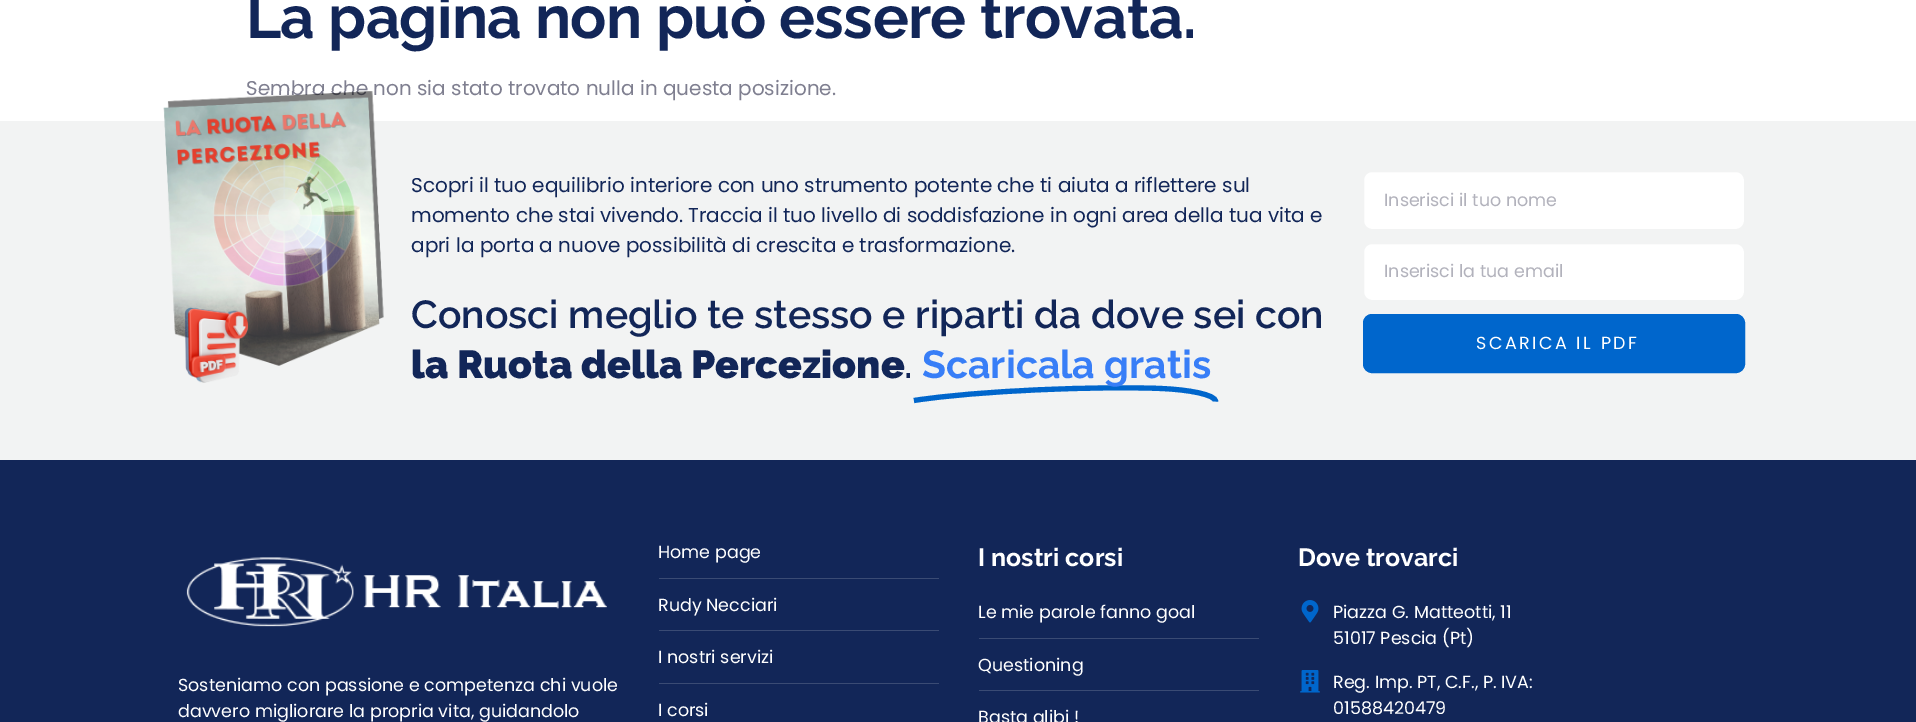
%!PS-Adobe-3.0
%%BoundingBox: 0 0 1916 722
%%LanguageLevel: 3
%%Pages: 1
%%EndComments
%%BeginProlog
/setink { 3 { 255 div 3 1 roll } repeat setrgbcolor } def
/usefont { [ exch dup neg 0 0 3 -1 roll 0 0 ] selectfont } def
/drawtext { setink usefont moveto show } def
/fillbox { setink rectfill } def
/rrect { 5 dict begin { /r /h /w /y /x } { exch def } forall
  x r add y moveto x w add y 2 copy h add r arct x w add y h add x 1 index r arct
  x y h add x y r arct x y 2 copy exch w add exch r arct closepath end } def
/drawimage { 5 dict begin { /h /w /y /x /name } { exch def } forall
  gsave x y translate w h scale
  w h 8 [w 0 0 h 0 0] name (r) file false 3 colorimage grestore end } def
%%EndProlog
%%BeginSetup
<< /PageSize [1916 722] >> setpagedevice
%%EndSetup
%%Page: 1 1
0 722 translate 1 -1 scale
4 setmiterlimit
0 0 1916 722 255 255 255 fillbox
/Raleway-Bold 60 usefont
18 38 88 setink
246 38 moveto -0.6 0 (La pagina non può essere trovata.) ashow
(Sembra che non sia stato trovato nulla in questa posizione.) 246 95 /Poppins-Regular 20 127 127 144 drawtext
0 121 1916 339 242 243 243 fillbox
(assets/img1.rgb) 163 91 221 292 drawimage
(Scopri il tuo equilibrio interiore con uno strumento potente che ti aiuta a riflettere sul) 411 192 /Poppins-Regular 20 18 38 88 drawtext
(momento che stai vivendo. Traccia il tuo livello di soddisfazione in ogni area della tua vita e) 411 222 /Poppins-Regular 20 18 38 88 drawtext
(apri la porta a nuove possibilità di crescita e trasformazione.) 411 252 /Poppins-Regular 20 18 38 88 drawtext
(Conosci meglio te stesso e riparti da dove sei con) 411 328 /Raleway-SemiBold 39.1 18 38 88 drawtext
(la Ruota della Percezione) 411 378 /Raleway-Black 39.1 18 38 88 drawtext
(.) 904 378 /Raleway-SemiBold 39.1 18 38 88 drawtext
0 102 204 setink
5.1 setlinewidth
914 400.5 moveto 978 390.5 1097.5 386 1161 388.5 curveto 1187.5 389.5 1216 394.5 1215.5 401.5 curveto stroke
(Scaricala gratis) 922 378 /Raleway-Bold 39.1 56 126 247 drawtext
255 255 255 setink
1363.5 171.5 381 58 8.5 rrect gsave fill grestore
242 243 243 setink
1 setlinewidth
stroke
(Inserisci il tuo nome) 1384 206 /Poppins-Regular 17.5 178 178 188 drawtext
255 255 255 setink
1363.5 243.5 381 57 8.5 rrect gsave fill grestore
242 243 243 setink
stroke
(Inserisci la tua email) 1384 277 /Poppins-Regular 17.5 178 178 188 drawtext
0 102 204 setink
1363.5 314.5 381 58 8.5 rrect gsave fill grestore
stroke
255 255 255 setink
1476 349 moveto 2.5 0 (SCARICA IL PDF) ashow
0 460 1916 262 18 38 88 fillbox
(assets/img2.rgb) 186 557 421 70 drawimage
(Sosteniamo con passione e competenza chi vuole) 178 691 /Poppins-Regular 17.5 255 255 255 drawtext
(davvero migliorare la propria vita, guidandolo) 178 717 /Poppins-Regular 17.5 255 255 255 drawtext
(Home page) 658 558 /Poppins-Regular 17.5 255 255 255 drawtext
659 578 280 1 58 75 116 fillbox
(Rudy Necciari) 658 611 /Poppins-Regular 17.5 255 255 255 drawtext
659 630 280 1 58 75 116 fillbox
(I nostri servizi) 658 663 /Poppins-Regular 17.5 255 255 255 drawtext
659 683 280 1 58 75 116 fillbox
(I corsi) 658 716 /Poppins-Regular 17.5 255 255 255 drawtext
(I nostri corsi) 978 566 /Raleway-Bold 25 255 255 255 drawtext
(Le mie parole fanno goal) 978 618 /Poppins-Regular 17.5 255 255 255 drawtext
979 638 280 1 58 75 116 fillbox
(Questioning) 978 671 /Poppins-Regular 17.5 255 255 255 drawtext
979 690 280 1 58 75 116 fillbox
(Basta alibi !) 978 723 /Poppins-Regular 17.5 255 255 255 drawtext
(Dove trovarci) 1298 566 /Raleway-Bold 25 255 255 255 drawtext
(assets/img3.rgb) 1301 600 18 23 drawimage
(Piazza G. Matteotti, 11) 1333 618 /Poppins-Regular 17.5 255 255 255 drawtext
(51017 Pescia \(Pt\)) 1333 644 /Poppins-Regular 17.5 255 255 255 drawtext
(assets/img4.rgb) 1300 670 20 23 drawimage
(Reg. Imp. PT, C.F., P. IVA:) 1333 688 /Poppins-Regular 17.5 255 255 255 drawtext
(01588420479) 1333 714 /Poppins-Regular 17.5 255 255 255 drawtext
showpage
%%EOF
